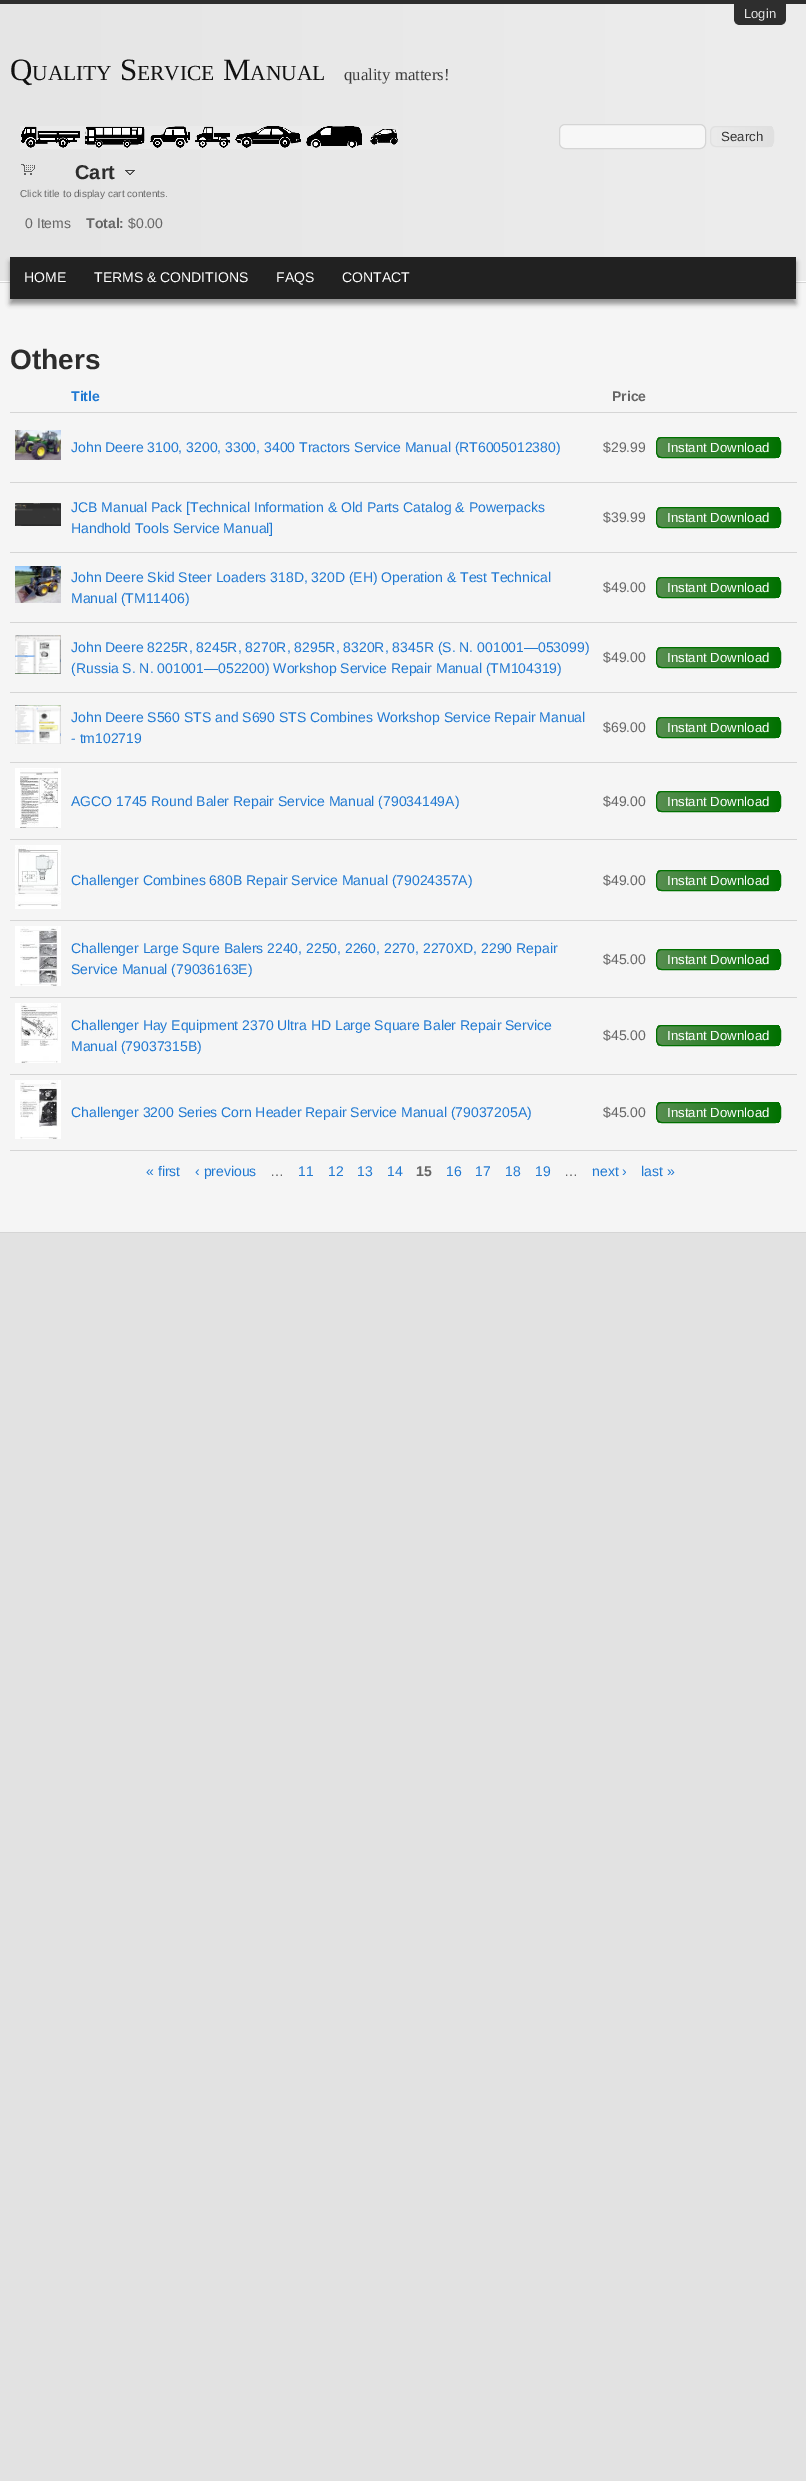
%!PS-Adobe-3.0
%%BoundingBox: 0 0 806 2481
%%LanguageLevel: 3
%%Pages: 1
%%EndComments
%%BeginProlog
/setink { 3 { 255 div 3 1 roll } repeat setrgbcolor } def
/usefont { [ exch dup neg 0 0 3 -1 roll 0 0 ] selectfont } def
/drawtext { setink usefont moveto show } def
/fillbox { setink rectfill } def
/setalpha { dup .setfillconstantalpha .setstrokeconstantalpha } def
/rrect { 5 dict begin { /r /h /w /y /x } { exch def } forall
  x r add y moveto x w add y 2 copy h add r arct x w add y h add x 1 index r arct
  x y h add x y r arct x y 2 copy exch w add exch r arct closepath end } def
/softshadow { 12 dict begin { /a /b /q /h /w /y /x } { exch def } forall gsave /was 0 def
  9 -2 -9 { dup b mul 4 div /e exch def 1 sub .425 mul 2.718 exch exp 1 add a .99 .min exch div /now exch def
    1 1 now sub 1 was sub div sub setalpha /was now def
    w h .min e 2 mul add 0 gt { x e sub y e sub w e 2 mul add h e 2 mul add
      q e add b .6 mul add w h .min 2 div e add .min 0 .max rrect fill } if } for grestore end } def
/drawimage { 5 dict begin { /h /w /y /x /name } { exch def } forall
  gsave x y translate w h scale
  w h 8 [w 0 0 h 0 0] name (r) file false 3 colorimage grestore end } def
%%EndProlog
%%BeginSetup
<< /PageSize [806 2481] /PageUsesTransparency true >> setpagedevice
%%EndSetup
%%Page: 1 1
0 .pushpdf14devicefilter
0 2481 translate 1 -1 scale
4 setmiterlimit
0 0 806 2481 226 226 226 fillbox
0 283 806 949 245 245 245 fillbox
gsave 0 4 moveto 806 4 lineto 806 281 lineto 0 281 lineto closepath clip newpath
<< /ShadingType 2 /ColorSpace /DeviceRGB /Coords [806 141 0 140] /Extend [true true] /Function << /FunctionType 2 /Domain [0 1] /C0 [0.929 0.929 0.929] /C1 [0.898 0.898 0.898] /N 1 >> >> shfill grestore
0 281 806 1 255 255 255 fillbox
0 0 806 4 46 46 46 fillbox
734 4 moveto 786 4 lineto 786 19 lineto 786 22.5 783.5 25 780 25 curveto 740 25 lineto 736.5 25 734 22.5 734 19 curveto closepath fill
(Login) 744 18 /LiberationSans-Regular 13 227 227 227 drawtext
(Q) 10 80 /LiberationSerif-Regular 31 17 17 17 drawtext
(UALITY) 32 80 /LiberationSerif-Regular 21.5 17 17 17 drawtext
(S) 120 80 /LiberationSerif-Regular 31 17 17 17 drawtext
(ERVICE) 137 80 /LiberationSerif-Regular 21.5 17 17 17 drawtext
(M) 223 80 /LiberationSerif-Regular 31 17 17 17 drawtext
(ANUAL) 250 80 /LiberationSerif-Regular 21.5 17 17 17 drawtext
(quality matters!) 344 80 /LiberationSerif-Regular 16.75 59 59 59 drawtext
(assets/img1.rgb) 20 126 378 23 drawimage
247 247 247 setink
559.5 124.5 146 24 5.5 rrect gsave fill grestore
213 213 213 setink
stroke
gsave
710 126 64 21 6 rrect clip newpath
gsave 711 126 moveto 773 126 lineto 773 147 lineto 711 147 lineto closepath clip newpath
<< /ShadingType 2 /ColorSpace /DeviceRGB /Coords [773 137 711 137] /Extend [true true] /Function << /FunctionType 2 /Domain [0 1] /C0 [0.878 0.878 0.878] /C1 [0.922 0.922 0.922] /N 1 >> >> shfill grestore
grestore
224 224 224 setink
710.5 126.5 63 20 5.5 rrect stroke
(Search) 721 141 /LiberationSans-Regular 13.25 51 51 51 drawtext
(assets/img2.rgb) 21 164 14 11 drawimage
(Cart) 75 179 /LiberationSans-Bold 20 44 44 44 drawtext
(assets/img3.rgb) 125 170 10 5 drawimage
(Click title to display cart contents.) 20 197 /LiberationSans-Regular 10 102 102 102 drawtext
(0 Items) 25 228 /LiberationSans-Regular 14 102 102 102 drawtext
(Total:) 86 228 /LiberationSans-Bold 14 102 102 102 drawtext
($0.00) 128 228 /LiberationSans-Regular 14 102 102 102 drawtext
0 282 806 1 213 213 213 fillbox
0 0 0 setink
10 262 786 42 0 2.5 0.4 softshadow
10 257 786 42 33 33 33 fillbox
(HOME) 24 282 /LiberationSans-Regular 14 255 255 255 drawtext
(TERMS & CONDITIONS) 94 282 /LiberationSans-Regular 14 255 255 255 drawtext
(FAQS) 276 282 /LiberationSans-Regular 14 255 255 255 drawtext
(CONTACT) 342 282 /LiberationSans-Regular 14 255 255 255 drawtext
0 1232 806 1 213 213 213 fillbox
(Others) 10 369 /LiberationSans-Bold 28 44 44 44 drawtext
(Title) 71 401 /LiberationSans-Bold 14 32 121 210 drawtext
(Price) 612 401 /LiberationSans-Bold 14 102 102 102 drawtext
10 412 787 1 213 213 213 fillbox
10 482 787 1 213 213 213 fillbox
(assets/img4.rgb) 15 430 46 30 drawimage
(John Deere 3100, 3200, 3300, 3400 Tractors Service Manual \(RT6005012380\)) 71 452 /LiberationSans-Regular 14 32 121 210 drawtext
($29.99) 603 452 /LiberationSans-Regular 14 102 102 102 drawtext
gsave
656 437 125 21 6 rrect clip newpath
gsave 657 437 moveto 780 437 lineto 780 458 lineto 657 458 lineto closepath clip newpath
<< /ShadingType 2 /ColorSpace /DeviceRGB /Coords [780 448 657 448] /Extend [true true] /Function << /FunctionType 2 /Domain [0 1] /C0 [0 0.443 0] /C1 [0.345 0.557 0.318] /N 1 >> >> shfill grestore
grestore
0 113 0 setink
656.5 437.5 124 20 5.5 rrect stroke
(Instant Download) 667 452 /LiberationSans-Regular 13.25 255 255 255 drawtext
10 552 787 1 213 213 213 fillbox
(assets/img5.rgb) 15 503 46 23 drawimage
(JCB Manual Pack [Technical Information & Old Parts Catalog & Powerpacks) 71 512 /LiberationSans-Regular 14 32 121 210 drawtext
(Handhold Tools Service Manual]) 71 533 /LiberationSans-Regular 14 32 121 210 drawtext
($39.99) 603 522 /LiberationSans-Regular 14 102 102 102 drawtext
gsave
656 507 125 21 6 rrect clip newpath
gsave 657 507 moveto 780 507 lineto 780 528 lineto 657 528 lineto closepath clip newpath
<< /ShadingType 2 /ColorSpace /DeviceRGB /Coords [780 518 657 518] /Extend [true true] /Function << /FunctionType 2 /Domain [0 1] /C0 [0 0.443 0] /C1 [0.345 0.557 0.318] /N 1 >> >> shfill grestore
grestore
0 113 0 setink
656.5 507.5 124 20 5.5 rrect stroke
(Instant Download) 667 522 /LiberationSans-Regular 13.25 255 255 255 drawtext
10 622 787 1 213 213 213 fillbox
(assets/img6.rgb) 15 566 46 37 drawimage
(John Deere Skid Steer Loaders 318D, 320D \(EH\) Operation & Test Technical) 71 582 /LiberationSans-Regular 14 32 121 210 drawtext
(Manual \(TM11406\)) 71 603 /LiberationSans-Regular 14 32 121 210 drawtext
($49.00) 603 592 /LiberationSans-Regular 14 102 102 102 drawtext
gsave
656 577 125 21 6 rrect clip newpath
gsave 657 577 moveto 780 577 lineto 780 598 lineto 657 598 lineto closepath clip newpath
<< /ShadingType 2 /ColorSpace /DeviceRGB /Coords [780 588 657 588] /Extend [true true] /Function << /FunctionType 2 /Domain [0 1] /C0 [0 0.443 0] /C1 [0.345 0.557 0.318] /N 1 >> >> shfill grestore
grestore
0 113 0 setink
656.5 577.5 124 20 5.5 rrect stroke
(Instant Download) 667 592 /LiberationSans-Regular 13.25 255 255 255 drawtext
10 692 787 1 213 213 213 fillbox
(assets/img7.rgb) 15 635 46 39 drawimage
(John Deere 8225R, 8245R, 8270R, 8295R, 8320R, 8345R \(S. N. 001001—053099\)) 71 652 /LiberationSans-Regular 14 32 121 210 drawtext
(\(Russia S. N. 001001—052200\) Workshop Service Repair Manual \(TM104319\)) 71 673 /LiberationSans-Regular 14 32 121 210 drawtext
($49.00) 603 662 /LiberationSans-Regular 14 102 102 102 drawtext
gsave
656 647 125 21 6 rrect clip newpath
gsave 657 647 moveto 780 647 lineto 780 668 lineto 657 668 lineto closepath clip newpath
<< /ShadingType 2 /ColorSpace /DeviceRGB /Coords [780 658 657 658] /Extend [true true] /Function << /FunctionType 2 /Domain [0 1] /C0 [0 0.443 0] /C1 [0.345 0.557 0.318] /N 1 >> >> shfill grestore
grestore
0 113 0 setink
656.5 647.5 124 20 5.5 rrect stroke
(Instant Download) 667 662 /LiberationSans-Regular 13.25 255 255 255 drawtext
10 762 787 1 213 213 213 fillbox
(assets/img8.rgb) 15 705 46 39 drawimage
(John Deere S560 STS and S690 STS Combines Workshop Service Repair Manual) 71 722 /LiberationSans-Regular 14 32 121 210 drawtext
(- tm102719) 71 743 /LiberationSans-Regular 14 32 121 210 drawtext
($69.00) 603 732 /LiberationSans-Regular 14 102 102 102 drawtext
gsave
656 717 125 21 6 rrect clip newpath
gsave 657 717 moveto 780 717 lineto 780 738 lineto 657 738 lineto closepath clip newpath
<< /ShadingType 2 /ColorSpace /DeviceRGB /Coords [780 728 657 728] /Extend [true true] /Function << /FunctionType 2 /Domain [0 1] /C0 [0 0.443 0] /C1 [0.345 0.557 0.318] /N 1 >> >> shfill grestore
grestore
0 113 0 setink
656.5 717.5 124 20 5.5 rrect stroke
(Instant Download) 667 732 /LiberationSans-Regular 13.25 255 255 255 drawtext
10 839 787 1 213 213 213 fillbox
(assets/img9.rgb) 15 768 46 60 drawimage
(AGCO 1745 Round Baler Repair Service Manual \(79034149A\)) 71 806 /LiberationSans-Regular 14 32 121 210 drawtext
($49.00) 603 806 /LiberationSans-Regular 14 102 102 102 drawtext
gsave
656 791 125 21 6 rrect clip newpath
gsave 657 791 moveto 780 791 lineto 780 812 lineto 657 812 lineto closepath clip newpath
<< /ShadingType 2 /ColorSpace /DeviceRGB /Coords [780 802 657 802] /Extend [true true] /Function << /FunctionType 2 /Domain [0 1] /C0 [0 0.443 0] /C1 [0.345 0.557 0.318] /N 1 >> >> shfill grestore
grestore
0 113 0 setink
656.5 791.5 124 20 5.5 rrect stroke
(Instant Download) 667 806 /LiberationSans-Regular 13.25 255 255 255 drawtext
10 920 787 1 213 213 213 fillbox
(assets/img10.rgb) 15 845 46 64 drawimage
(Challenger Combines 680B Repair Service Manual \(79024357A\)) 71 885 /LiberationSans-Regular 14 32 121 210 drawtext
($49.00) 603 885 /LiberationSans-Regular 14 102 102 102 drawtext
gsave
656 870 125 21 6 rrect clip newpath
gsave 657 870 moveto 780 870 lineto 780 891 lineto 657 891 lineto closepath clip newpath
<< /ShadingType 2 /ColorSpace /DeviceRGB /Coords [780 881 657 881] /Extend [true true] /Function << /FunctionType 2 /Domain [0 1] /C0 [0 0.443 0] /C1 [0.345 0.557 0.318] /N 1 >> >> shfill grestore
grestore
0 113 0 setink
656.5 870.5 124 20 5.5 rrect stroke
(Instant Download) 667 885 /LiberationSans-Regular 13.25 255 255 255 drawtext
10 997 787 1 213 213 213 fillbox
(assets/img11.rgb) 15 926 46 60 drawimage
(Challenger Large Squre Balers 2240, 2250, 2260, 2270, 2270XD, 2290 Repair) 71 953 /LiberationSans-Regular 14 32 121 210 drawtext
(Service Manual \(79036163E\)) 71 974 /LiberationSans-Regular 14 32 121 210 drawtext
($45.00) 603 964 /LiberationSans-Regular 14 102 102 102 drawtext
gsave
656 949 125 21 6 rrect clip newpath
gsave 657 949 moveto 780 949 lineto 780 970 lineto 657 970 lineto closepath clip newpath
<< /ShadingType 2 /ColorSpace /DeviceRGB /Coords [780 960 657 960] /Extend [true true] /Function << /FunctionType 2 /Domain [0 1] /C0 [0 0.443 0] /C1 [0.345 0.557 0.318] /N 1 >> >> shfill grestore
grestore
0 113 0 setink
656.5 949.5 124 20 5.5 rrect stroke
(Instant Download) 667 964 /LiberationSans-Regular 13.25 255 255 255 drawtext
10 1074 787 1 213 213 213 fillbox
(assets/img12.rgb) 15 1003 46 60 drawimage
(Challenger Hay Equipment 2370 Ultra HD Large Square Baler Repair Service) 71 1030 /LiberationSans-Regular 14 32 121 210 drawtext
(Manual \(79037315B\)) 71 1051 /LiberationSans-Regular 14 32 121 210 drawtext
($45.00) 603 1040 /LiberationSans-Regular 14 102 102 102 drawtext
gsave
656 1025 125 21 6 rrect clip newpath
gsave 657 1025 moveto 780 1025 lineto 780 1046 lineto 657 1046 lineto closepath clip newpath
<< /ShadingType 2 /ColorSpace /DeviceRGB /Coords [780 1036 657 1036] /Extend [true true] /Function << /FunctionType 2 /Domain [0 1] /C0 [0 0.443 0] /C1 [0.345 0.557 0.318] /N 1 >> >> shfill grestore
grestore
0 113 0 setink
656.5 1025.5 124 20 5.5 rrect stroke
(Instant Download) 667 1040 /LiberationSans-Regular 13.25 255 255 255 drawtext
10 1150 787 1 213 213 213 fillbox
(assets/img13.rgb) 15 1080 46 59 drawimage
(Challenger 3200 Series Corn Header Repair Service Manual \(79037205A\)) 71 1117 /LiberationSans-Regular 14 32 121 210 drawtext
($45.00) 603 1117 /LiberationSans-Regular 14 102 102 102 drawtext
gsave
656 1102 125 21 6 rrect clip newpath
gsave 657 1102 moveto 780 1102 lineto 780 1123 lineto 657 1123 lineto closepath clip newpath
<< /ShadingType 2 /ColorSpace /DeviceRGB /Coords [780 1113 657 1113] /Extend [true true] /Function << /FunctionType 2 /Domain [0 1] /C0 [0 0.443 0] /C1 [0.345 0.557 0.318] /N 1 >> >> shfill grestore
grestore
0 113 0 setink
656.5 1102.5 124 20 5.5 rrect stroke
(Instant Download) 667 1117 /LiberationSans-Regular 13.25 255 255 255 drawtext
(« first) 146 1176 /LiberationSans-Regular 14 32 121 210 drawtext
(‹ previous) 195 1176 /LiberationSans-Regular 14 32 121 210 drawtext
(…) 270 1176 /LiberationSans-Regular 14 102 102 102 drawtext
(11) 298 1176 /LiberationSans-Regular 14 32 121 210 drawtext
(12) 328 1176 /LiberationSans-Regular 14 32 121 210 drawtext
(13) 357 1176 /LiberationSans-Regular 14 32 121 210 drawtext
(14) 387 1176 /LiberationSans-Regular 14 32 121 210 drawtext
(15) 416 1176 /LiberationSans-Bold 14 102 102 102 drawtext
(16) 446 1176 /LiberationSans-Regular 14 32 121 210 drawtext
(17) 475 1176 /LiberationSans-Regular 14 32 121 210 drawtext
(18) 505 1176 /LiberationSans-Regular 14 32 121 210 drawtext
(19) 535 1176 /LiberationSans-Regular 14 32 121 210 drawtext
(…) 564 1176 /LiberationSans-Regular 14 102 102 102 drawtext
(next ›) 592 1176 /LiberationSans-Regular 14 32 121 210 drawtext
(last ») 641 1176 /LiberationSans-Regular 14 32 121 210 drawtext
.poppdf14devicefilter showpage
%%EOF
